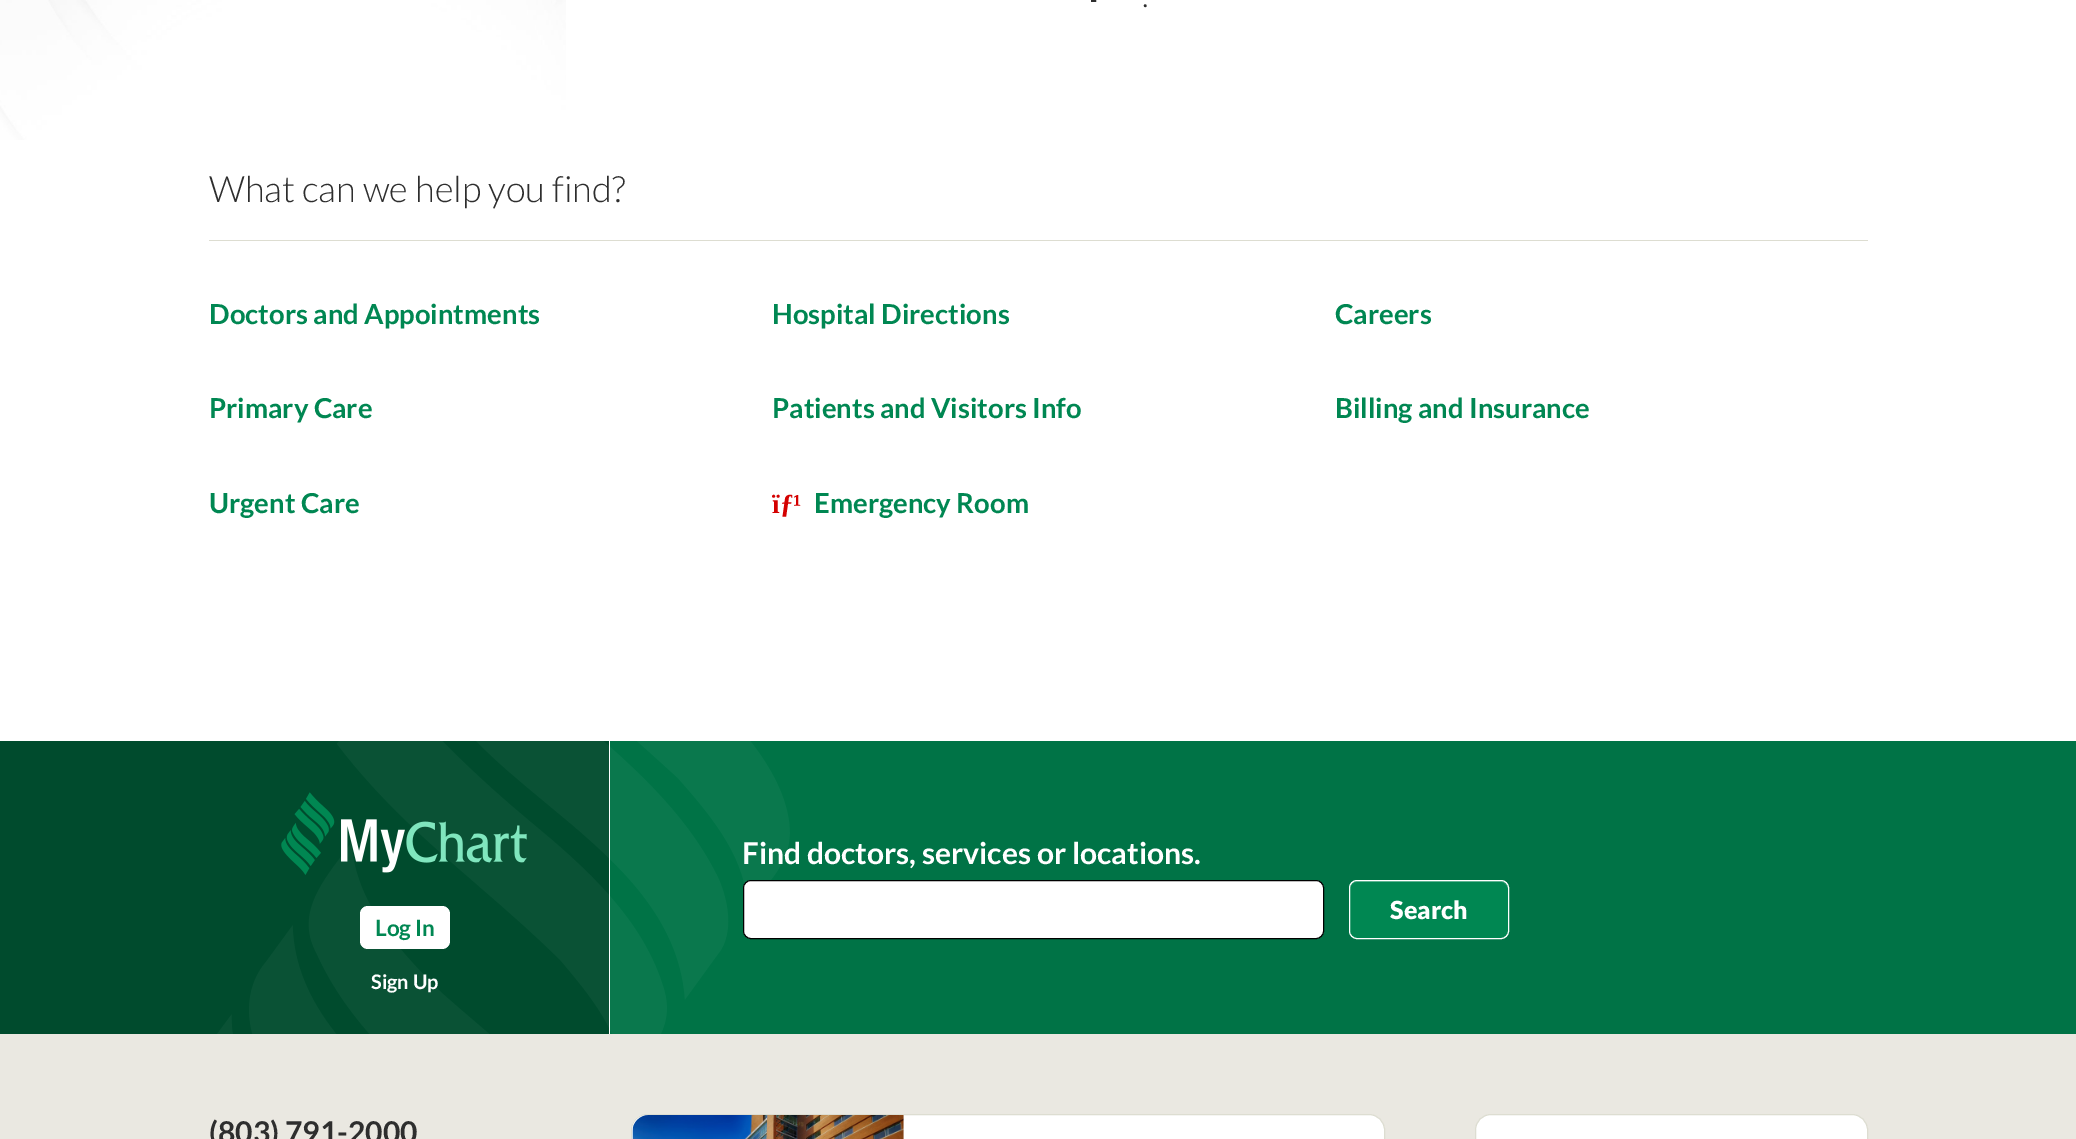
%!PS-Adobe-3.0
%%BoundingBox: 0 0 2076 1139
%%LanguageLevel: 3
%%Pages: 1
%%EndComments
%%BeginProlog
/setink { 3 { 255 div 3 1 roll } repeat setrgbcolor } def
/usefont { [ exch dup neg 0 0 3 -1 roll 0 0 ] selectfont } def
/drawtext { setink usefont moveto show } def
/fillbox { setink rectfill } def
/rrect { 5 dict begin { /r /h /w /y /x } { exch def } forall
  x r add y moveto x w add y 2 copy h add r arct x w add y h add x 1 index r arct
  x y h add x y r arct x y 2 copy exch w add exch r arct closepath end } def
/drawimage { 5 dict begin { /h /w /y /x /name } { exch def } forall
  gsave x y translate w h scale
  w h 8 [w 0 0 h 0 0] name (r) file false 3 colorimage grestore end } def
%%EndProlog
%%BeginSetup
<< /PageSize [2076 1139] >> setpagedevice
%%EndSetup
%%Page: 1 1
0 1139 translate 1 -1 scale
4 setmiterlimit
0 0 2076 1139 255 255 255 fillbox
(assets/img1.rgb) 0 0 566 140 drawimage
(-) 1090 7 /Lato-Bold 20 46 46 46 drawtext
(.) 1143 7 /Lato-Bold 20 46 46 46 drawtext
209 240 1659 1 221 221 209 fillbox
(What can we help you find?) 209 202 /Lato-Light 36.25 46 46 46 drawtext
(Doctors and Appointments) 209 324 /Lato-Bold 27.5 0 135 82 drawtext
(Primary Care) 209 418 /Lato-Bold 27.5 0 135 82 drawtext
(Urgent Care) 209 513 /Lato-Bold 27.5 0 135 82 drawtext
(Hospital Directions) 772 324 /Lato-Bold 27.5 0 135 82 drawtext
(Patients and Visitors Info) 772 418 /Lato-Bold 27.5 0 135 82 drawtext
(ïƒ¹) 772 513 /LiberationSerif-Bold 27.5 212 0 0 drawtext
(Emergency Room) 814 513 /Lato-Bold 27.5 0 135 82 drawtext
(Careers) 1335 324 /Lato-Bold 27.5 0 135 82 drawtext
(Billing and Insurance) 1335 418 /Lato-Bold 27.5 0 135 82 drawtext
610 741 1466 293 0 115 70 fillbox
0 741 609 293 0 75 45 fillbox
(assets/img2.rgb) 217 741 573 293 drawimage
(Find doctors, services or locations.) 742 864 /Lato-Bold 30 255 255 255 drawtext
743.5 880.5 580 58 7.5 rrect gsave fill grestore
0 0 0 setink
stroke
0 135 82 setink
1349 880 160 59 8 rrect fill
38 153 108 setink
1357 882 moveto 1501 882 lineto 1504 882 1508 886 1508 889 curveto 1508 887 lineto 1508 884 1505 881 1502 881 curveto 1356 881 lineto 1353 881 1350 884 1350 887 curveto 1350 889 lineto 1350 886 1353 882 1357 882 curveto closepath fill
255 255 255 setink
1349.5 880.5 159 58 7.5 rrect stroke
(Search) 1390 919 /Lato-Black 25 255 255 255 drawtext
(assets/img3.rgb) 281 792 246 83 drawimage
360 906 90 43 8 rrect fill
(Log In) 375 936 /Lato-Bold 22.5 0 135 82 drawtext
(Sign Up) 371 989 /Lato-Bold 20 255 255 255 drawtext
0 1034 2076 105 234 232 225 fillbox
(\(803\) 791-2000) 209 1143 /Lato-Bold 30 46 46 46 drawtext
255 255 255 setink
631.5 1114.5 753 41 15.5 rrect gsave fill grestore
221 221 209 setink
stroke
(assets/img4.rgb) 632 1115 272 24 drawimage
255 255 255 setink
1475.5 1114.5 392 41 15.5 rrect gsave fill grestore
221 221 209 setink
stroke
showpage
%%EOF
